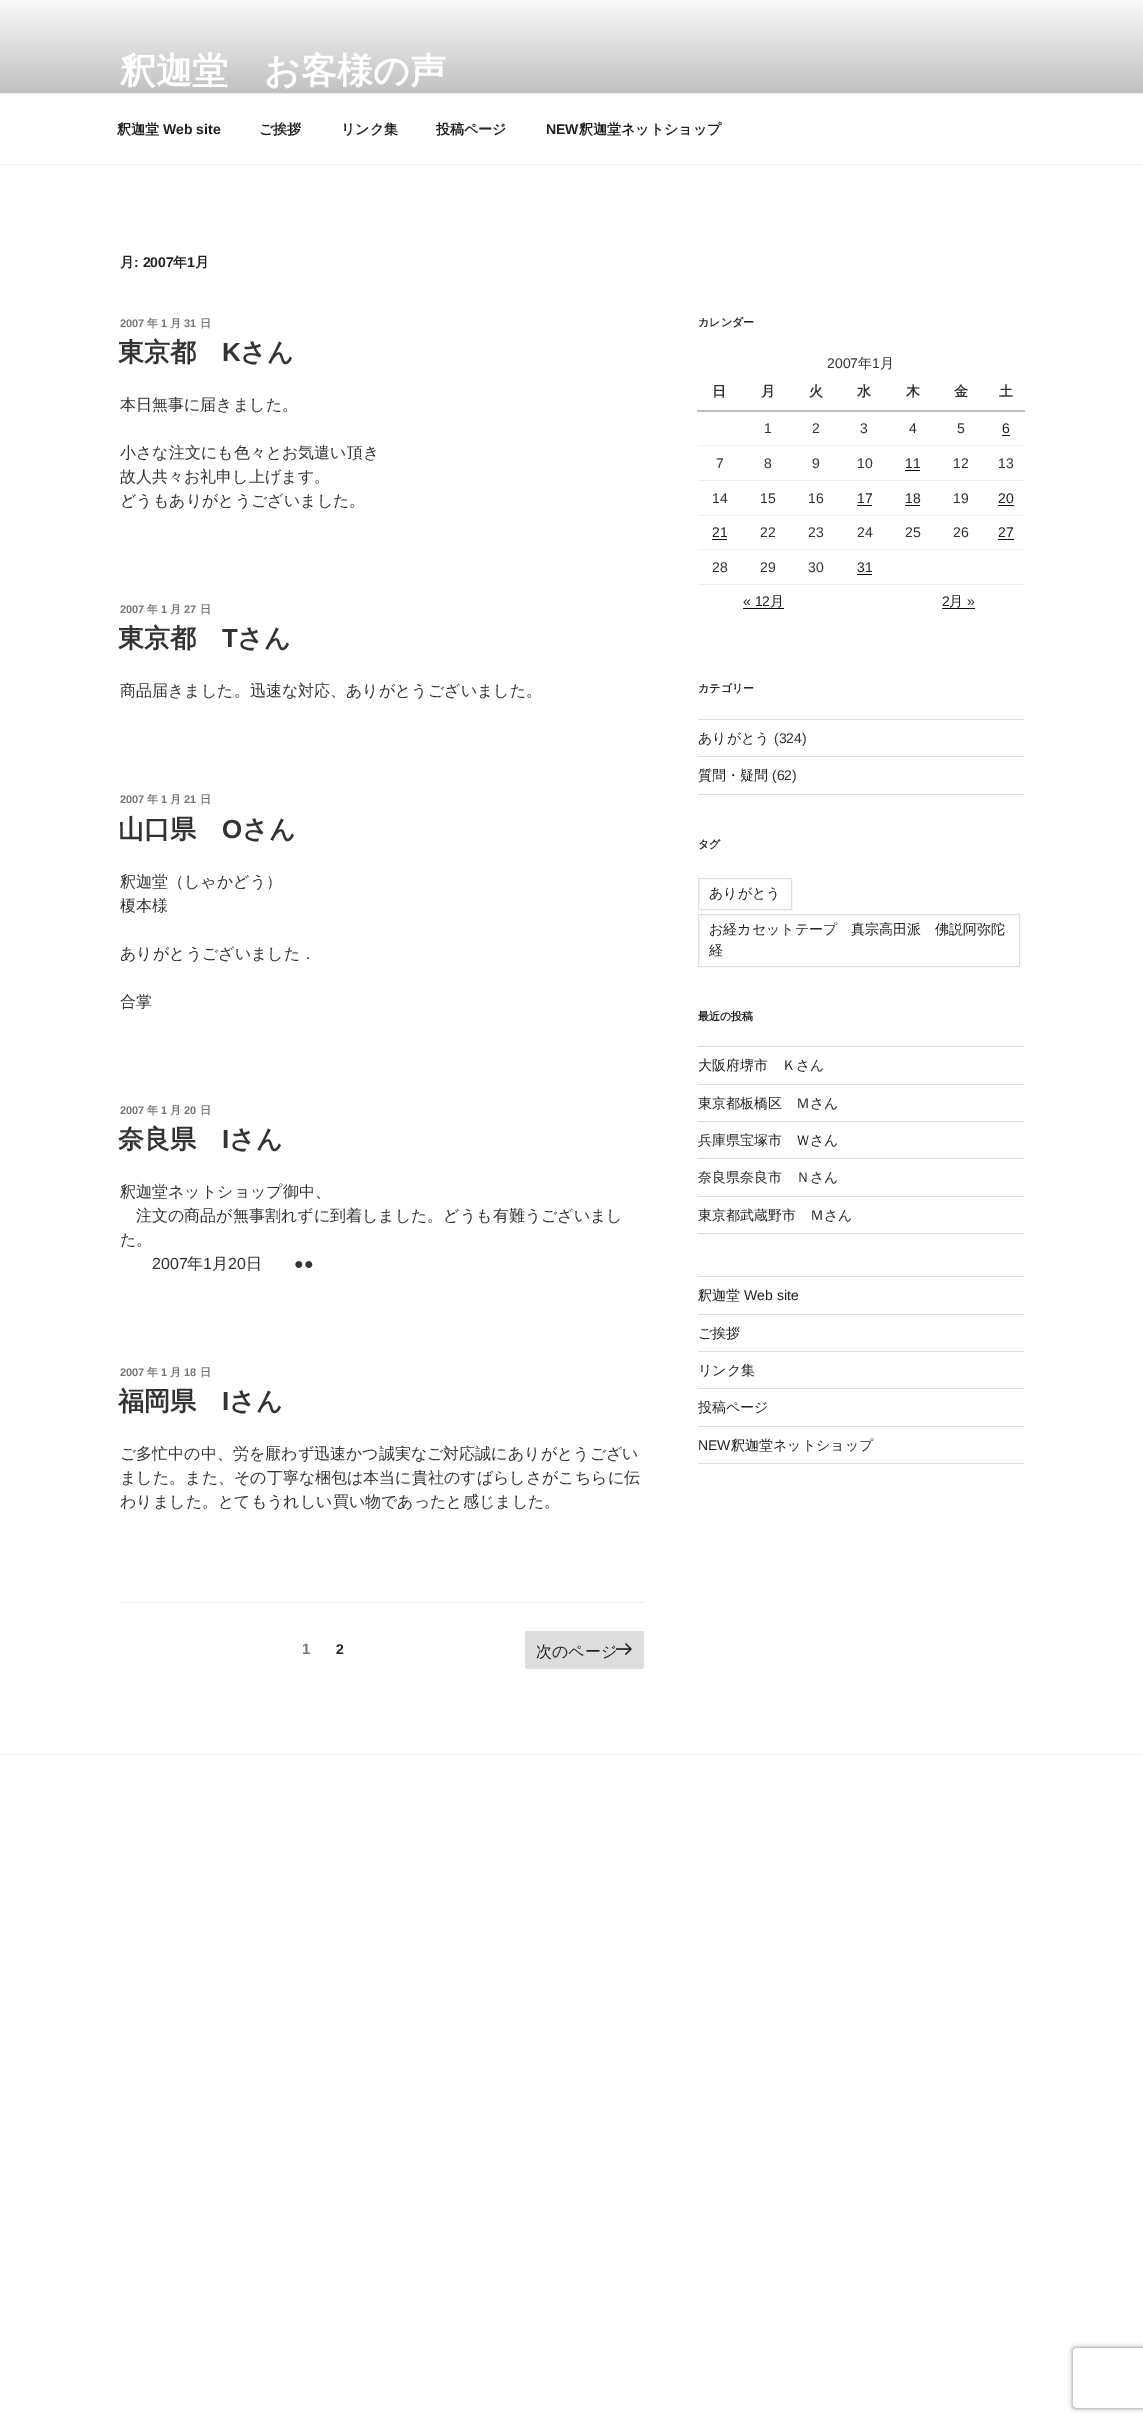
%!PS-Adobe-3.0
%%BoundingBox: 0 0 1143 2422
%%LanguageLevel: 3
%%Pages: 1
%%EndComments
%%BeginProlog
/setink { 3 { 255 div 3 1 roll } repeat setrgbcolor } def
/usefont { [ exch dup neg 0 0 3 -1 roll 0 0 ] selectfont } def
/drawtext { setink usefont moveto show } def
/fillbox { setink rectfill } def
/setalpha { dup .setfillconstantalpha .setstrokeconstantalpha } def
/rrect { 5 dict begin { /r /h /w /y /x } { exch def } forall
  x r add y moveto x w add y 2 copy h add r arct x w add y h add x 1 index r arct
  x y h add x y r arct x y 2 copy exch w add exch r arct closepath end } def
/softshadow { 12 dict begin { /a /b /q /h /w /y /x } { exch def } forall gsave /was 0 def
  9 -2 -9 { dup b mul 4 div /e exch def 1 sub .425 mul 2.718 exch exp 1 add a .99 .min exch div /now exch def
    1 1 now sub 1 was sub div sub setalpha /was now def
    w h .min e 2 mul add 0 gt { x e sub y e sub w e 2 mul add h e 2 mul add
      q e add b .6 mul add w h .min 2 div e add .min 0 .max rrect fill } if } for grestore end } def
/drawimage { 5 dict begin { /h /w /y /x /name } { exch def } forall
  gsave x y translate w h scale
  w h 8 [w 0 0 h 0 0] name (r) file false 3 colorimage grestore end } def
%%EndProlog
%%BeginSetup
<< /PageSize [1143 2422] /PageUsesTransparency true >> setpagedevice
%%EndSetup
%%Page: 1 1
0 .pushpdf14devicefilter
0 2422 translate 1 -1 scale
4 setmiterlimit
0 0 1143 2422 255 255 255 fillbox
gsave 0 0 moveto 1143 0 lineto 1143 93 lineto 0 93 lineto closepath clip newpath
<< /ShadingType 2 /ColorSpace /DeviceRGB /Coords [572 0 572 165] /Extend [true true] /Function << /FunctionType 3 /Domain [0 1] /Functions [<< /FunctionType 2 /Domain [0 1] /C0 [0.976 0.976 0.976] /C1 [0.686 0.686 0.686] /N 1 >> << /FunctionType 2 /Domain [0 1] /C0 [0.686 0.686 0.686] /C1 [0.686 0.686 0.686] /N 1 >>] /Bounds [0.75] /Encode [0 1 0 1] >> >> shfill grestore
(釈迦堂　お客様の声) 120 83 /WenQuanYiZenHei-Bold 36 255 255 255 drawtext
0 93 1143 1 238 238 238 fillbox
0 164 1143 1 238 238 238 fillbox
(釈迦堂) 117 134 /WenQuanYiZenHei-Bold 14 34 34 34 drawtext
(Web site) 163 134 /LiberationSans-Bold 14 34 34 34 drawtext
(ご挨拶) 259 134 /WenQuanYiZenHei-Bold 14 34 34 34 drawtext
(リンク集) 341 134 /WenQuanYiZenHei-Bold 14 34 34 34 drawtext
(投稿ページ) 436 134 /WenQuanYiZenHei-Bold 14 34 34 34 drawtext
(NEW) 546 134 /LiberationSans-Bold 14 34 34 34 drawtext
(釈迦堂ネットショップ) 579 134 /WenQuanYiZenHei-Bold 14 34 34 34 drawtext
(月) 120 267 /WenQuanYiZenHei-Bold 14 34 34 34 drawtext
(: 2007) 134 267 /LiberationSans-Bold 14 34 34 34 drawtext
(年) 173 267 /WenQuanYiZenHei-Bold 14 34 34 34 drawtext
(1) 187 267 /LiberationSans-Bold 14 34 34 34 drawtext
(月) 195 267 /WenQuanYiZenHei-Bold 14 34 34 34 drawtext
(2007) 120 327 /LiberationSans-Bold 11 118 118 118 drawtext
(年) 147 327 /WenQuanYiZenHei-Bold 11 118 118 118 drawtext
(1) 161 327 /LiberationSans-Bold 11 118 118 118 drawtext
(月) 170 327 /WenQuanYiZenHei-Bold 11 118 118 118 drawtext
(31) 184 327 /LiberationSans-Bold 11 118 118 118 drawtext
(日) 200 327 /WenQuanYiZenHei-Bold 11 118 118 118 drawtext
(東京都) 118 361 /WenQuanYiZenHei-Bold 26 51 51 51 drawtext
(K) 222 361 /LiberationSans-Bold 26 51 51 51 drawtext
(さん) 240 361 /WenQuanYiZenHei-Bold 26 51 51 51 drawtext
(本日無事に届きました。) 120 410 /WenQuanYiZenHei-Medium 16 51 51 51 drawtext
(小さな注文にも色々とお気遣い頂き) 120 458 /WenQuanYiZenHei-Medium 16 51 51 51 drawtext
(故人共々お礼申し上げます。) 120 482 /WenQuanYiZenHei-Medium 16 51 51 51 drawtext
(どうもありがとうございました。) 120 506 /WenQuanYiZenHei-Medium 16 51 51 51 drawtext
(2007) 120 613 /LiberationSans-Bold 11 118 118 118 drawtext
(年) 147 613 /WenQuanYiZenHei-Bold 11 118 118 118 drawtext
(1) 161 613 /LiberationSans-Bold 11 118 118 118 drawtext
(月) 170 613 /WenQuanYiZenHei-Bold 11 118 118 118 drawtext
(27) 184 613 /LiberationSans-Bold 11 118 118 118 drawtext
(日) 200 613 /WenQuanYiZenHei-Bold 11 118 118 118 drawtext
(東京都) 118 647 /WenQuanYiZenHei-Bold 26 51 51 51 drawtext
(T) 222 647 /LiberationSans-Bold 26 51 51 51 drawtext
(さん) 237 647 /WenQuanYiZenHei-Bold 26 51 51 51 drawtext
(商品届きました。迅速な対応、ありがとうございました。) 120 696 /WenQuanYiZenHei-Medium 16 51 51 51 drawtext
(2007) 120 803 /LiberationSans-Bold 11 118 118 118 drawtext
(年) 147 803 /WenQuanYiZenHei-Bold 11 118 118 118 drawtext
(1) 161 803 /LiberationSans-Bold 11 118 118 118 drawtext
(月) 170 803 /WenQuanYiZenHei-Bold 11 118 118 118 drawtext
(21) 184 803 /LiberationSans-Bold 11 118 118 118 drawtext
(日) 200 803 /WenQuanYiZenHei-Bold 11 118 118 118 drawtext
(山口県) 118 838 /WenQuanYiZenHei-Bold 26 51 51 51 drawtext
(O) 222 838 /LiberationSans-Bold 26 51 51 51 drawtext
(さん) 242 838 /WenQuanYiZenHei-Bold 26 51 51 51 drawtext
(釈迦堂（しゃかどう）) 120 887 /WenQuanYiZenHei-Medium 16 51 51 51 drawtext
(榎本様) 120 911 /WenQuanYiZenHei-Medium 16 51 51 51 drawtext
(ありがとうございました．) 120 959 /WenQuanYiZenHei-Medium 16 51 51 51 drawtext
(合掌) 120 1007 /WenQuanYiZenHei-Medium 16 51 51 51 drawtext
(2007) 120 1114 /LiberationSans-Bold 11 118 118 118 drawtext
(年) 147 1114 /WenQuanYiZenHei-Bold 11 118 118 118 drawtext
(1) 161 1114 /LiberationSans-Bold 11 118 118 118 drawtext
(月) 170 1114 /WenQuanYiZenHei-Bold 11 118 118 118 drawtext
(20) 184 1114 /LiberationSans-Bold 11 118 118 118 drawtext
(日) 200 1114 /WenQuanYiZenHei-Bold 11 118 118 118 drawtext
(奈良県) 118 1148 /WenQuanYiZenHei-Bold 26 51 51 51 drawtext
(I) 222 1148 /LiberationSans-Bold 26 51 51 51 drawtext
(さん) 229 1148 /WenQuanYiZenHei-Bold 26 51 51 51 drawtext
(釈迦堂ネットショップ御中、) 120 1197 /WenQuanYiZenHei-Medium 16 51 51 51 drawtext
(注文の商品が無事割れずに到着しました。どうも有難うございまし) 136 1221 /WenQuanYiZenHei-Medium 16 51 51 51 drawtext
(た。) 120 1245 /WenQuanYiZenHei-Medium 16 51 51 51 drawtext
(2007) 152 1269 /LiberationSans-Regular 16 51 51 51 drawtext
(年) 187 1269 /WenQuanYiZenHei-Medium 16 51 51 51 drawtext
(1) 203 1269 /LiberationSans-Regular 16 51 51 51 drawtext
(月) 212 1269 /WenQuanYiZenHei-Medium 16 51 51 51 drawtext
(20) 228 1269 /LiberationSans-Regular 16 51 51 51 drawtext
(日) 246 1269 /WenQuanYiZenHei-Medium 16 51 51 51 drawtext
(●●) 294 1269 /LiberationSans-Regular 16 51 51 51 drawtext
(2007) 120 1376 /LiberationSans-Bold 11 118 118 118 drawtext
(年) 147 1376 /WenQuanYiZenHei-Bold 11 118 118 118 drawtext
(1) 161 1376 /LiberationSans-Bold 11 118 118 118 drawtext
(月) 170 1376 /WenQuanYiZenHei-Bold 11 118 118 118 drawtext
(18) 184 1376 /LiberationSans-Bold 11 118 118 118 drawtext
(日) 200 1376 /WenQuanYiZenHei-Bold 11 118 118 118 drawtext
(福岡県) 118 1410 /WenQuanYiZenHei-Bold 26 51 51 51 drawtext
(I) 222 1410 /LiberationSans-Bold 26 51 51 51 drawtext
(さん) 229 1410 /WenQuanYiZenHei-Bold 26 51 51 51 drawtext
(ご多忙中の中、労を厭わず迅速かつ誠実なご対応誠にありがとうござい) 120 1459 /WenQuanYiZenHei-Medium 16 51 51 51 drawtext
(ました。また、その丁寧な梱包は本当に貴社のすばらしさがこちらに伝) 120 1483 /WenQuanYiZenHei-Medium 16 51 51 51 drawtext
(わりました。とてもうれしい買い物であったと感じました。) 120 1507 /WenQuanYiZenHei-Medium 16 51 51 51 drawtext
120 1602 524 1 238 238 238 fillbox
(1) 302 1654 /LiberationSans-Bold 15 118 118 118 drawtext
(2) 336 1654 /LiberationSans-Bold 14 34 34 34 drawtext
221 221 221 setink
525 1631 119 39 2 rrect fill
255 255 255 setink
525 1667 moveto 525 1668 525 1669 526 1670 curveto 623 1670 lineto 629 1670 644 1674 644 1667 curveto 644 1668 643 1669 642 1669 curveto 527 1669 lineto 526 1669 525 1668 525 1667 curveto closepath fill
(次のページ) 536 1657 /WenQuanYiZenHei-Medium 16 34 34 34 drawtext
(assets/img1.rgb) 616 1643 16 12 drawimage
(カレンダー) 698 326 /WenQuanYiZenHei-Bold 11 34 34 34 drawtext
(2007) 827 368 /LiberationSans-Regular 14 51 51 51 drawtext
(年) 858 368 /WenQuanYiZenHei-Medium 14 51 51 51 drawtext
(1) 872 368 /LiberationSans-Regular 14 51 51 51 drawtext
(月) 880 368 /WenQuanYiZenHei-Medium 14 51 51 51 drawtext
(日) 712 396 /WenQuanYiZenHei-Bold 14 51 51 51 drawtext
(月) 761 396 /WenQuanYiZenHei-Bold 14 51 51 51 drawtext
(火) 809 396 /WenQuanYiZenHei-Bold 14 51 51 51 drawtext
(水) 857 396 /WenQuanYiZenHei-Bold 14 51 51 51 drawtext
(木) 906 396 /WenQuanYiZenHei-Bold 14 51 51 51 drawtext
(金) 954 396 /WenQuanYiZenHei-Bold 14 51 51 51 drawtext
697 410 328 2 187 187 187 fillbox
(土) 999 396 /WenQuanYiZenHei-Bold 14 51 51 51 drawtext
698 445 326 1 238 238 238 fillbox
(1) 764 433 /LiberationSans-Regular 14 51 51 51 drawtext
(2) 812 433 /LiberationSans-Regular 14 51 51 51 drawtext
(3) 860 433 /LiberationSans-Regular 14 51 51 51 drawtext
(4) 909 433 /LiberationSans-Regular 14 51 51 51 drawtext
(5) 957 433 /LiberationSans-Regular 14 51 51 51 drawtext
(6) 1002 433 /LiberationSans-Regular 14 34 34 34 drawtext
1002 435 8 1 15 15 15 fillbox
698 480 326 1 238 238 238 fillbox
(7) 716 468 /LiberationSans-Regular 14 51 51 51 drawtext
(8) 764 468 /LiberationSans-Regular 14 51 51 51 drawtext
(9) 812 468 /LiberationSans-Regular 14 51 51 51 drawtext
(10) 857 468 /LiberationSans-Regular 14 51 51 51 drawtext
(11) 905 468 /LiberationSans-Regular 14 34 34 34 drawtext
905 470 15 1 15 15 15 fillbox
(12) 953 468 /LiberationSans-Regular 14 51 51 51 drawtext
(13) 998 468 /LiberationSans-Regular 14 51 51 51 drawtext
698 515 326 1 238 238 238 fillbox
(14) 712 503 /LiberationSans-Regular 14 51 51 51 drawtext
(15) 760 503 /LiberationSans-Regular 14 51 51 51 drawtext
(16) 808 503 /LiberationSans-Regular 14 51 51 51 drawtext
(17) 857 503 /LiberationSans-Regular 14 34 34 34 drawtext
857 505 15 1 15 15 15 fillbox
(18) 905 503 /LiberationSans-Regular 14 34 34 34 drawtext
905 505 15 1 15 15 15 fillbox
(19) 953 503 /LiberationSans-Regular 14 51 51 51 drawtext
(20) 998 503 /LiberationSans-Regular 14 34 34 34 drawtext
998 505 16 1 15 15 15 fillbox
698 549 326 1 238 238 238 fillbox
(21) 712 537 /LiberationSans-Regular 14 34 34 34 drawtext
712 539 15 1 15 15 15 fillbox
(22) 760 537 /LiberationSans-Regular 14 51 51 51 drawtext
(23) 808 537 /LiberationSans-Regular 14 51 51 51 drawtext
(24) 857 537 /LiberationSans-Regular 14 51 51 51 drawtext
(25) 905 537 /LiberationSans-Regular 14 51 51 51 drawtext
(26) 953 537 /LiberationSans-Regular 14 51 51 51 drawtext
(27) 998 537 /LiberationSans-Regular 14 34 34 34 drawtext
998 539 16 1 15 15 15 fillbox
698 584 326 1 238 238 238 fillbox
(28) 712 572 /LiberationSans-Regular 14 51 51 51 drawtext
(29) 760 572 /LiberationSans-Regular 14 51 51 51 drawtext
(30) 808 572 /LiberationSans-Regular 14 51 51 51 drawtext
(31) 857 572 /LiberationSans-Regular 14 34 34 34 drawtext
857 574 15 1 15 15 15 fillbox
(« 12) 743 606 /LiberationSans-Regular 14 34 34 34 drawtext
(月) 770 606 /WenQuanYiZenHei-Medium 14 34 34 34 drawtext
743 608 41 1 15 15 15 fillbox
(2) 942 606 /LiberationSans-Regular 14 34 34 34 drawtext
(月) 949 606 /WenQuanYiZenHei-Medium 14 34 34 34 drawtext
(») 967 606 /LiberationSans-Regular 14 34 34 34 drawtext
942 608 33 1 15 15 15 fillbox
(カテゴリー) 698 692 /WenQuanYiZenHei-Bold 11 34 34 34 drawtext
698 719 326 1 221 221 221 fillbox
698 756 326 1 221 221 221 fillbox
(ありがとう) 698 743 /WenQuanYiZenHei-Medium 14 34 34 34 drawtext
(\(324\)) 774 743 /LiberationSans-Regular 14 51 51 51 drawtext
698 794 326 1 221 221 221 fillbox
(質問・疑問) 698 780 /WenQuanYiZenHei-Medium 14 34 34 34 drawtext
(\(62\)) 772 780 /LiberationSans-Regular 14 51 51 51 drawtext
(タグ) 698 848 /WenQuanYiZenHei-Bold 11 34 34 34 drawtext
221 221 221 setink
698.5 878.5 93 31 rectstroke
(ありがとう) 709 898 /WenQuanYiZenHei-Medium 14 34 34 34 drawtext
221 221 221 setink
698.5 914.5 321 52 rectstroke
(お経カセットテープ　真宗高田派　佛説阿弥陀) 709 934 /WenQuanYiZenHei-Medium 14 34 34 34 drawtext
(経) 709 955 /WenQuanYiZenHei-Medium 14 34 34 34 drawtext
(最近の投稿) 698 1020 /WenQuanYiZenHei-Bold 11 34 34 34 drawtext
698 1046 326 1 221 221 221 fillbox
698 1084 326 1 221 221 221 fillbox
(大阪府堺市　Ｋさん) 698 1070 /WenQuanYiZenHei-Medium 14 34 34 34 drawtext
698 1121 326 1 221 221 221 fillbox
(東京都板橋区　Ｍさん) 698 1108 /WenQuanYiZenHei-Medium 14 34 34 34 drawtext
698 1158 326 1 221 221 221 fillbox
(兵庫県宝塚市　Ｗさん) 698 1145 /WenQuanYiZenHei-Medium 14 34 34 34 drawtext
698 1196 326 1 221 221 221 fillbox
(奈良県奈良市　Ｎさん) 698 1182 /WenQuanYiZenHei-Medium 14 34 34 34 drawtext
698 1233 326 1 221 221 221 fillbox
(東京都武蔵野市　Ｍさん) 698 1220 /WenQuanYiZenHei-Medium 14 34 34 34 drawtext
698 1276 326 1 221 221 221 fillbox
698 1314 326 1 221 221 221 fillbox
(釈迦堂) 698 1300 /WenQuanYiZenHei-Medium 14 34 34 34 drawtext
(Web site) 744 1300 /LiberationSans-Regular 14 34 34 34 drawtext
698 1351 326 1 221 221 221 fillbox
(ご挨拶) 698 1338 /WenQuanYiZenHei-Medium 14 34 34 34 drawtext
698 1388 326 1 221 221 221 fillbox
(リンク集) 698 1375 /WenQuanYiZenHei-Medium 14 34 34 34 drawtext
698 1426 326 1 221 221 221 fillbox
(投稿ページ) 698 1412 /WenQuanYiZenHei-Medium 14 34 34 34 drawtext
698 1463 326 1 221 221 221 fillbox
(NEW) 698 1450 /LiberationSans-Regular 14 34 34 34 drawtext
(釈迦堂ネットショップ) 731 1450 /WenQuanYiZenHei-Medium 14 34 34 34 drawtext
0 1754 1143 1 238 238 238 fillbox
gsave
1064 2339 moveto 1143 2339 lineto 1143 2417 lineto 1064 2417 lineto closepath 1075 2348 moveto 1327 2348 lineto 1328 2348 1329 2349 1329 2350 curveto 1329 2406 lineto 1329 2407 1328 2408 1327 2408 curveto 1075 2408 lineto 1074 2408 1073 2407 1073 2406 curveto 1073 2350 lineto 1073 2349 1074 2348 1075 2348 curveto closepath eoclip newpath
128 128 128 setink
1073 2348 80 60 2 2.5 1 softshadow
grestore
.poppdf14devicefilter showpage
%%EOF
